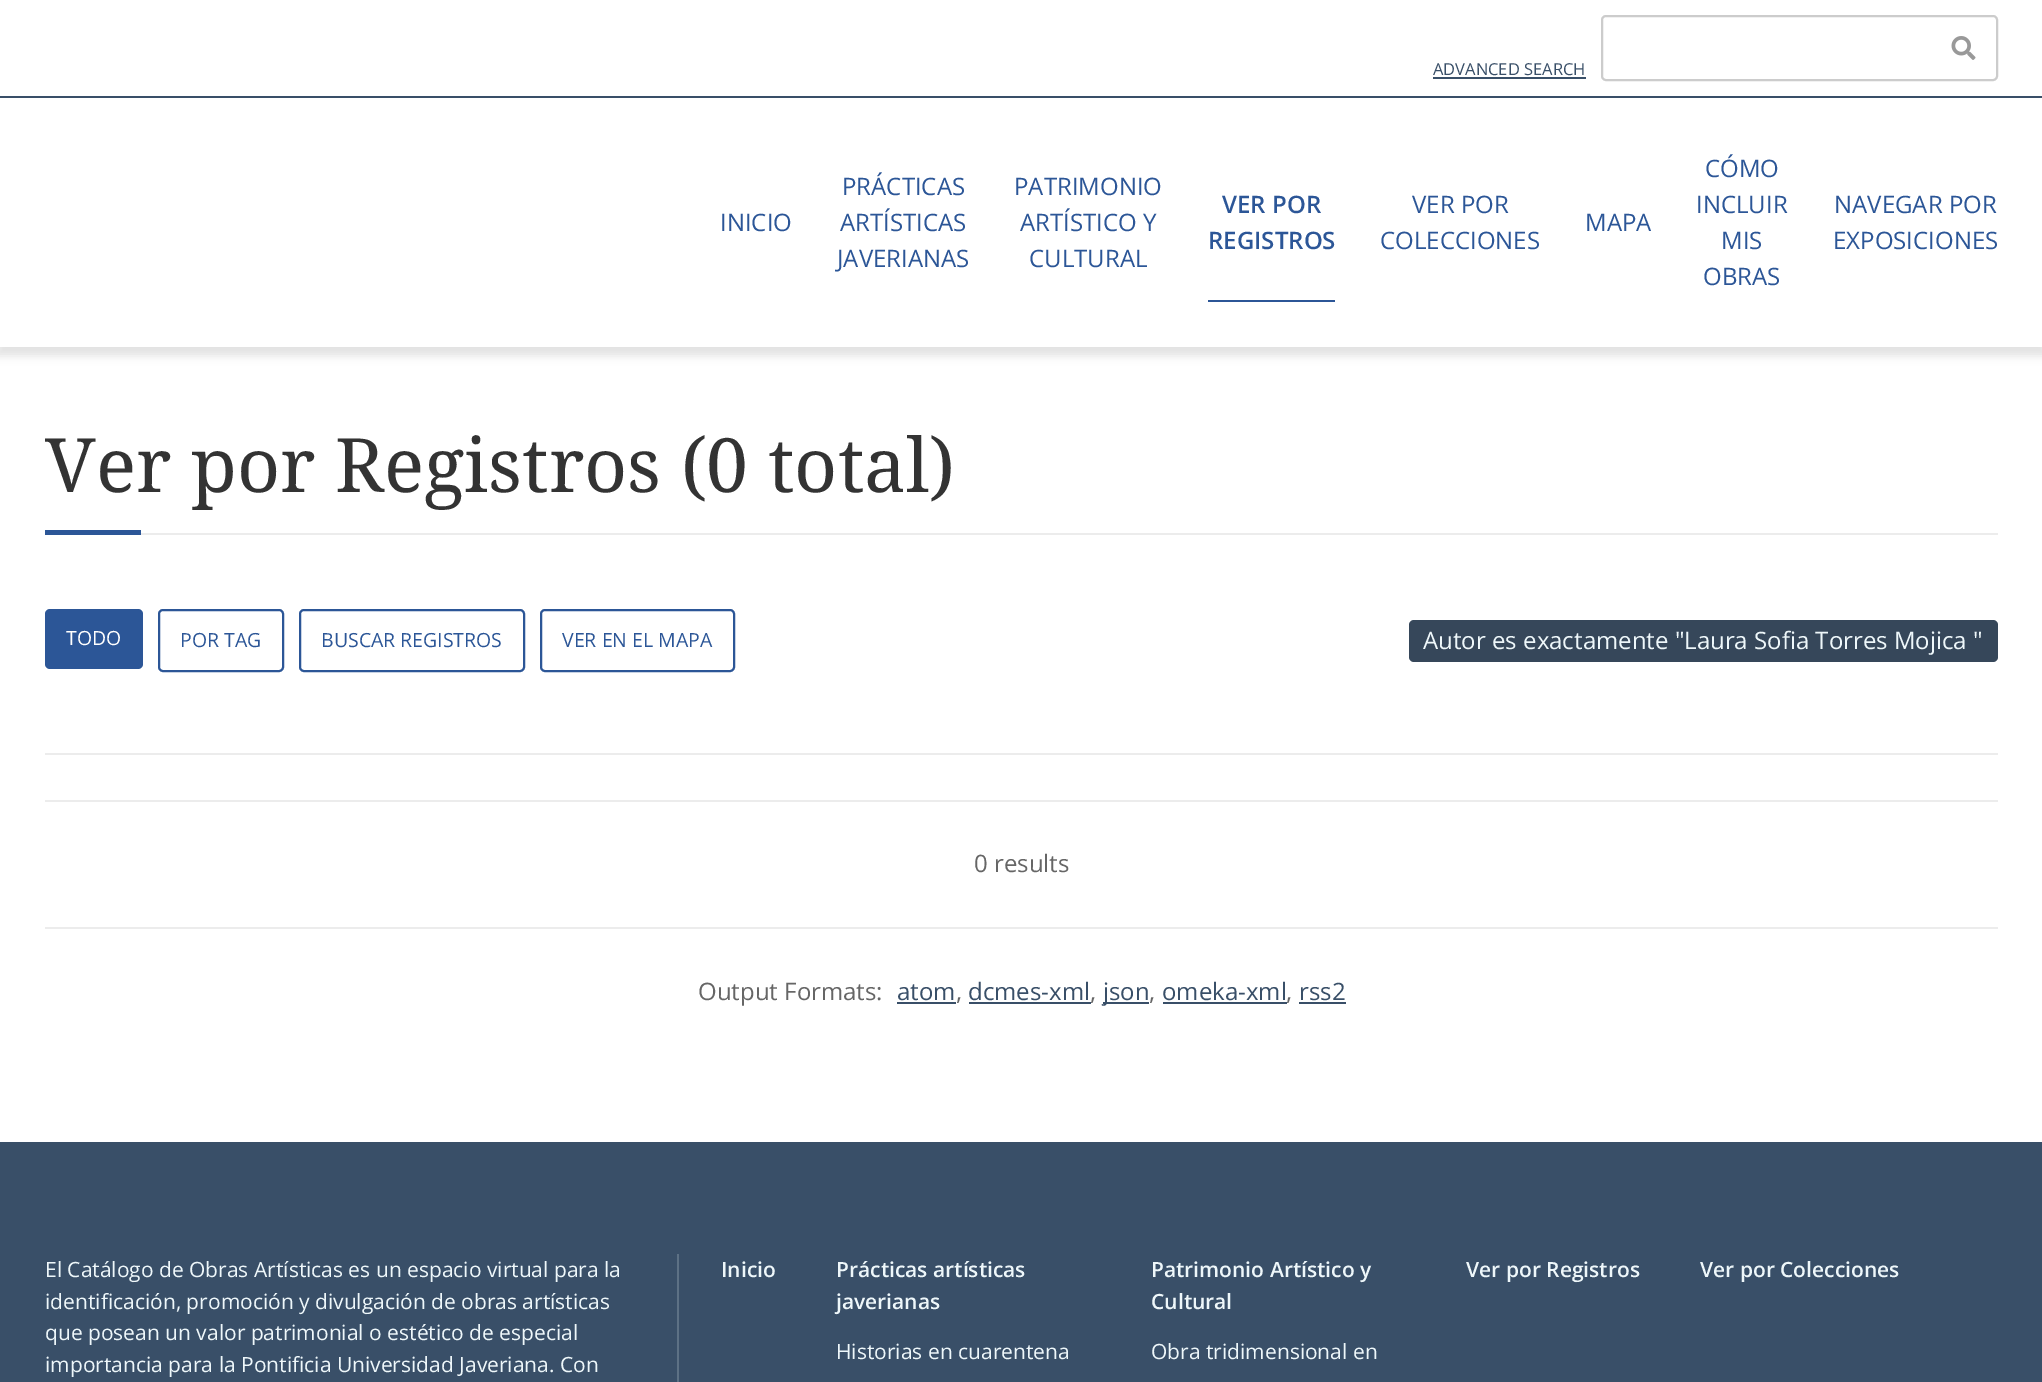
%!PS-Adobe-3.0
%%BoundingBox: 0 0 2042 1382
%%LanguageLevel: 3
%%Pages: 1
%%EndComments
%%BeginProlog
/setink { 3 { 255 div 3 1 roll } repeat setrgbcolor } def
/usefont { [ exch dup neg 0 0 3 -1 roll 0 0 ] selectfont } def
/drawtext { setink usefont moveto show } def
/fillbox { setink rectfill } def
/setalpha { dup .setfillconstantalpha .setstrokeconstantalpha } def
/rrect { 5 dict begin { /r /h /w /y /x } { exch def } forall
  x r add y moveto x w add y 2 copy h add r arct x w add y h add x 1 index r arct
  x y h add x y r arct x y 2 copy exch w add exch r arct closepath end } def
/softshadow { 12 dict begin { /a /b /q /h /w /y /x } { exch def } forall gsave /was 0 def
  9 -2 -9 { dup b mul 4 div /e exch def 1 sub .425 mul 2.718 exch exp 1 add a .99 .min exch div /now exch def
    1 1 now sub 1 was sub div sub setalpha /was now def
    w h .min e 2 mul add 0 gt { x e sub y e sub w e 2 mul add h e 2 mul add
      q e add b .6 mul add w h .min 2 div e add .min 0 .max rrect fill } if } for grestore end } def
/drawimage { 5 dict begin { /h /w /y /x /name } { exch def } forall
  gsave x y translate w h scale
  w h 8 [w 0 0 h 0 0] name (r) file false 3 colorimage grestore end } def
%%EndProlog
%%BeginSetup
<< /PageSize [2042 1382] /PageUsesTransparency true >> setpagedevice
%%EndSetup
%%Page: 1 1
0 .pushpdf14devicefilter
0 1382 translate 1 -1 scale
4 setmiterlimit
0 0 2042 1382 255 255 255 fillbox
0 0 0 setink
-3 3 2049 353 0 4.5 0.11 softshadow
0 0 2042 347 255 255 255 fillbox
(ADVANCED SEARCH) 1433 75 /OpenSans-Regular 16.5 57 79 104 drawtext
1433 77 153 2 57 79 104 fillbox
204 204 204 setink
2 setlinewidth
1602 16 395 64 4 rrect stroke
(assets/img1.rgb) 1951 36 25 24 drawimage
0 96 2042 2 57 79 104 fillbox
(INICIO) 720 231 /OpenSans-Regular 24 44 86 151 drawtext
(PRÁCTICAS) 842 195 /OpenSans-Regular 24 44 86 151 drawtext
(ARTÍSTICAS) 840 231 /OpenSans-Regular 24 44 86 151 drawtext
(JAVERIANAS) 837 267 /OpenSans-Regular 24 44 86 151 drawtext
(PATRIMONIO) 1014 195 /OpenSans-Regular 24 44 86 151 drawtext
(ARTÍSTICO Y) 1020 231 /OpenSans-Regular 24 44 86 151 drawtext
(CULTURAL) 1029 267 /OpenSans-Regular 24 44 86 151 drawtext
(VER POR) 1222 213 /OpenSans-SemiBold 24 44 86 151 drawtext
(REGISTROS) 1208 249 /OpenSans-SemiBold 24 44 86 151 drawtext
1208 300 127 2 44 86 151 fillbox
(VER POR) 1412 213 /OpenSans-Regular 24 44 86 151 drawtext
(COLECCIONES) 1380 249 /OpenSans-Regular 24 44 86 151 drawtext
(MAPA) 1585 231 /OpenSans-Regular 24 44 86 151 drawtext
(CÓMO) 1705 177 /OpenSans-Regular 24 44 86 151 drawtext
(INCLUIR) 1696 213 /OpenSans-Regular 24 44 86 151 drawtext
(MIS) 1721 249 /OpenSans-Regular 24 44 86 151 drawtext
(OBRAS) 1703 285 /OpenSans-Regular 24 44 86 151 drawtext
(NAVEGAR POR) 1834 213 /OpenSans-Regular 24 44 86 151 drawtext
(EXPOSICIONES) 1833 249 /OpenSans-Regular 24 44 86 151 drawtext
141 533 1857 2 236 236 236 fillbox
(Ver por Registros \(0 total\)) 45 492 /NotoSerif-Regular 75 51 51 51 drawtext
45 530 96 5 44 86 151 fillbox
45 609 98 60 5 rrect fill
(TODO) 66 645 /OpenSans-Regular 19.5 255 255 255 drawtext
44 86 151 setink
159 610 124 61 4 rrect stroke
(POR TAG) 180 647 /OpenSans-Regular 19.5 44 86 151 drawtext
300 610 224 61 4 rrect stroke
(BUSCAR REGISTROS) 321 647 /OpenSans-Regular 19.5 44 86 151 drawtext
541 610 193 61 4 rrect stroke
(VER EN EL MAPA) 562 647 /OpenSans-Regular 19.5 44 86 151 drawtext
54 71 90 setink
1409 620 589 42 5 rrect fill
(Autor es exactamente "Laura Sofia Torres Mojica ") 1423 649 /OpenSans-Regular 24 238 247 250 drawtext
45 753 1953 2 236 236 236 fillbox
45 800 1953 2 236 236 236 fillbox
45 927 1953 2 236 236 236 fillbox
(0 results) 974 872 /OpenSans-Regular 24 102 102 102 drawtext
(Output Formats:) 698 1000 /OpenSans-Regular 24 102 102 102 drawtext
(atom) 897 1000 /OpenSans-Regular 24 57 79 104 drawtext
897 1002 59 2 57 79 104 fillbox
(,) 956 1000 /OpenSans-Regular 24 102 102 102 drawtext
(dcmes-xml) 968 1000 /OpenSans-Regular 24 57 79 104 drawtext
969 1002 122 2 57 79 104 fillbox
(,) 1090 1000 /OpenSans-Regular 24 102 102 102 drawtext
1103 1002 46 2 57 79 104 fillbox
(json) 1103 1000 /OpenSans-Regular 24 57 79 104 drawtext
(,) 1149 1000 /OpenSans-Regular 24 102 102 102 drawtext
(omeka-xml) 1162 1000 /OpenSans-Regular 24 57 79 104 drawtext
1163 1002 124 2 57 79 104 fillbox
(,) 1286 1000 /OpenSans-Regular 24 102 102 102 drawtext
(rss2) 1299 1000 /OpenSans-Regular 24 57 79 104 drawtext
1299 1002 47 2 57 79 104 fillbox
0 1142 2042 240 57 79 104 fillbox
(El Catálogo de Obras Artísticas es un espacio virtual para la) 45 1277 /OpenSans-Regular 21 238 247 250 drawtext
(identificación, promoción y divulgación de obras artísticas) 45 1309 /OpenSans-Regular 21 238 247 250 drawtext
(que posean un valor patrimonial o estético de especial) 45 1340 /OpenSans-Regular 21 238 247 250 drawtext
(importancia para la Pontificia Universidad Javeriana. Con) 45 1372 /OpenSans-Regular 21 238 247 250 drawtext
677 1254 2 128 93 113 133 fillbox
(Inicio) 721 1277 /OpenSans-SemiBold 21 238 247 250 drawtext
(Prácticas artísticas) 836 1277 /OpenSans-SemiBold 21 238 247 250 drawtext
(javerianas) 836 1309 /OpenSans-SemiBold 21 238 247 250 drawtext
(Historias en cuarentena) 836 1359 /OpenSans-Regular 21 238 247 250 drawtext
(Patrimonio Artístico y) 1151 1277 /OpenSans-SemiBold 21 238 247 250 drawtext
(Cultural) 1151 1309 /OpenSans-SemiBold 21 238 247 250 drawtext
(Obra tridimensional en) 1151 1359 /OpenSans-Regular 21 238 247 250 drawtext
(Ver por Registros) 1466 1277 /OpenSans-SemiBold 21 238 247 250 drawtext
(Ver por Colecciones) 1700 1277 /OpenSans-SemiBold 21 238 247 250 drawtext
.poppdf14devicefilter showpage
%%EOF
